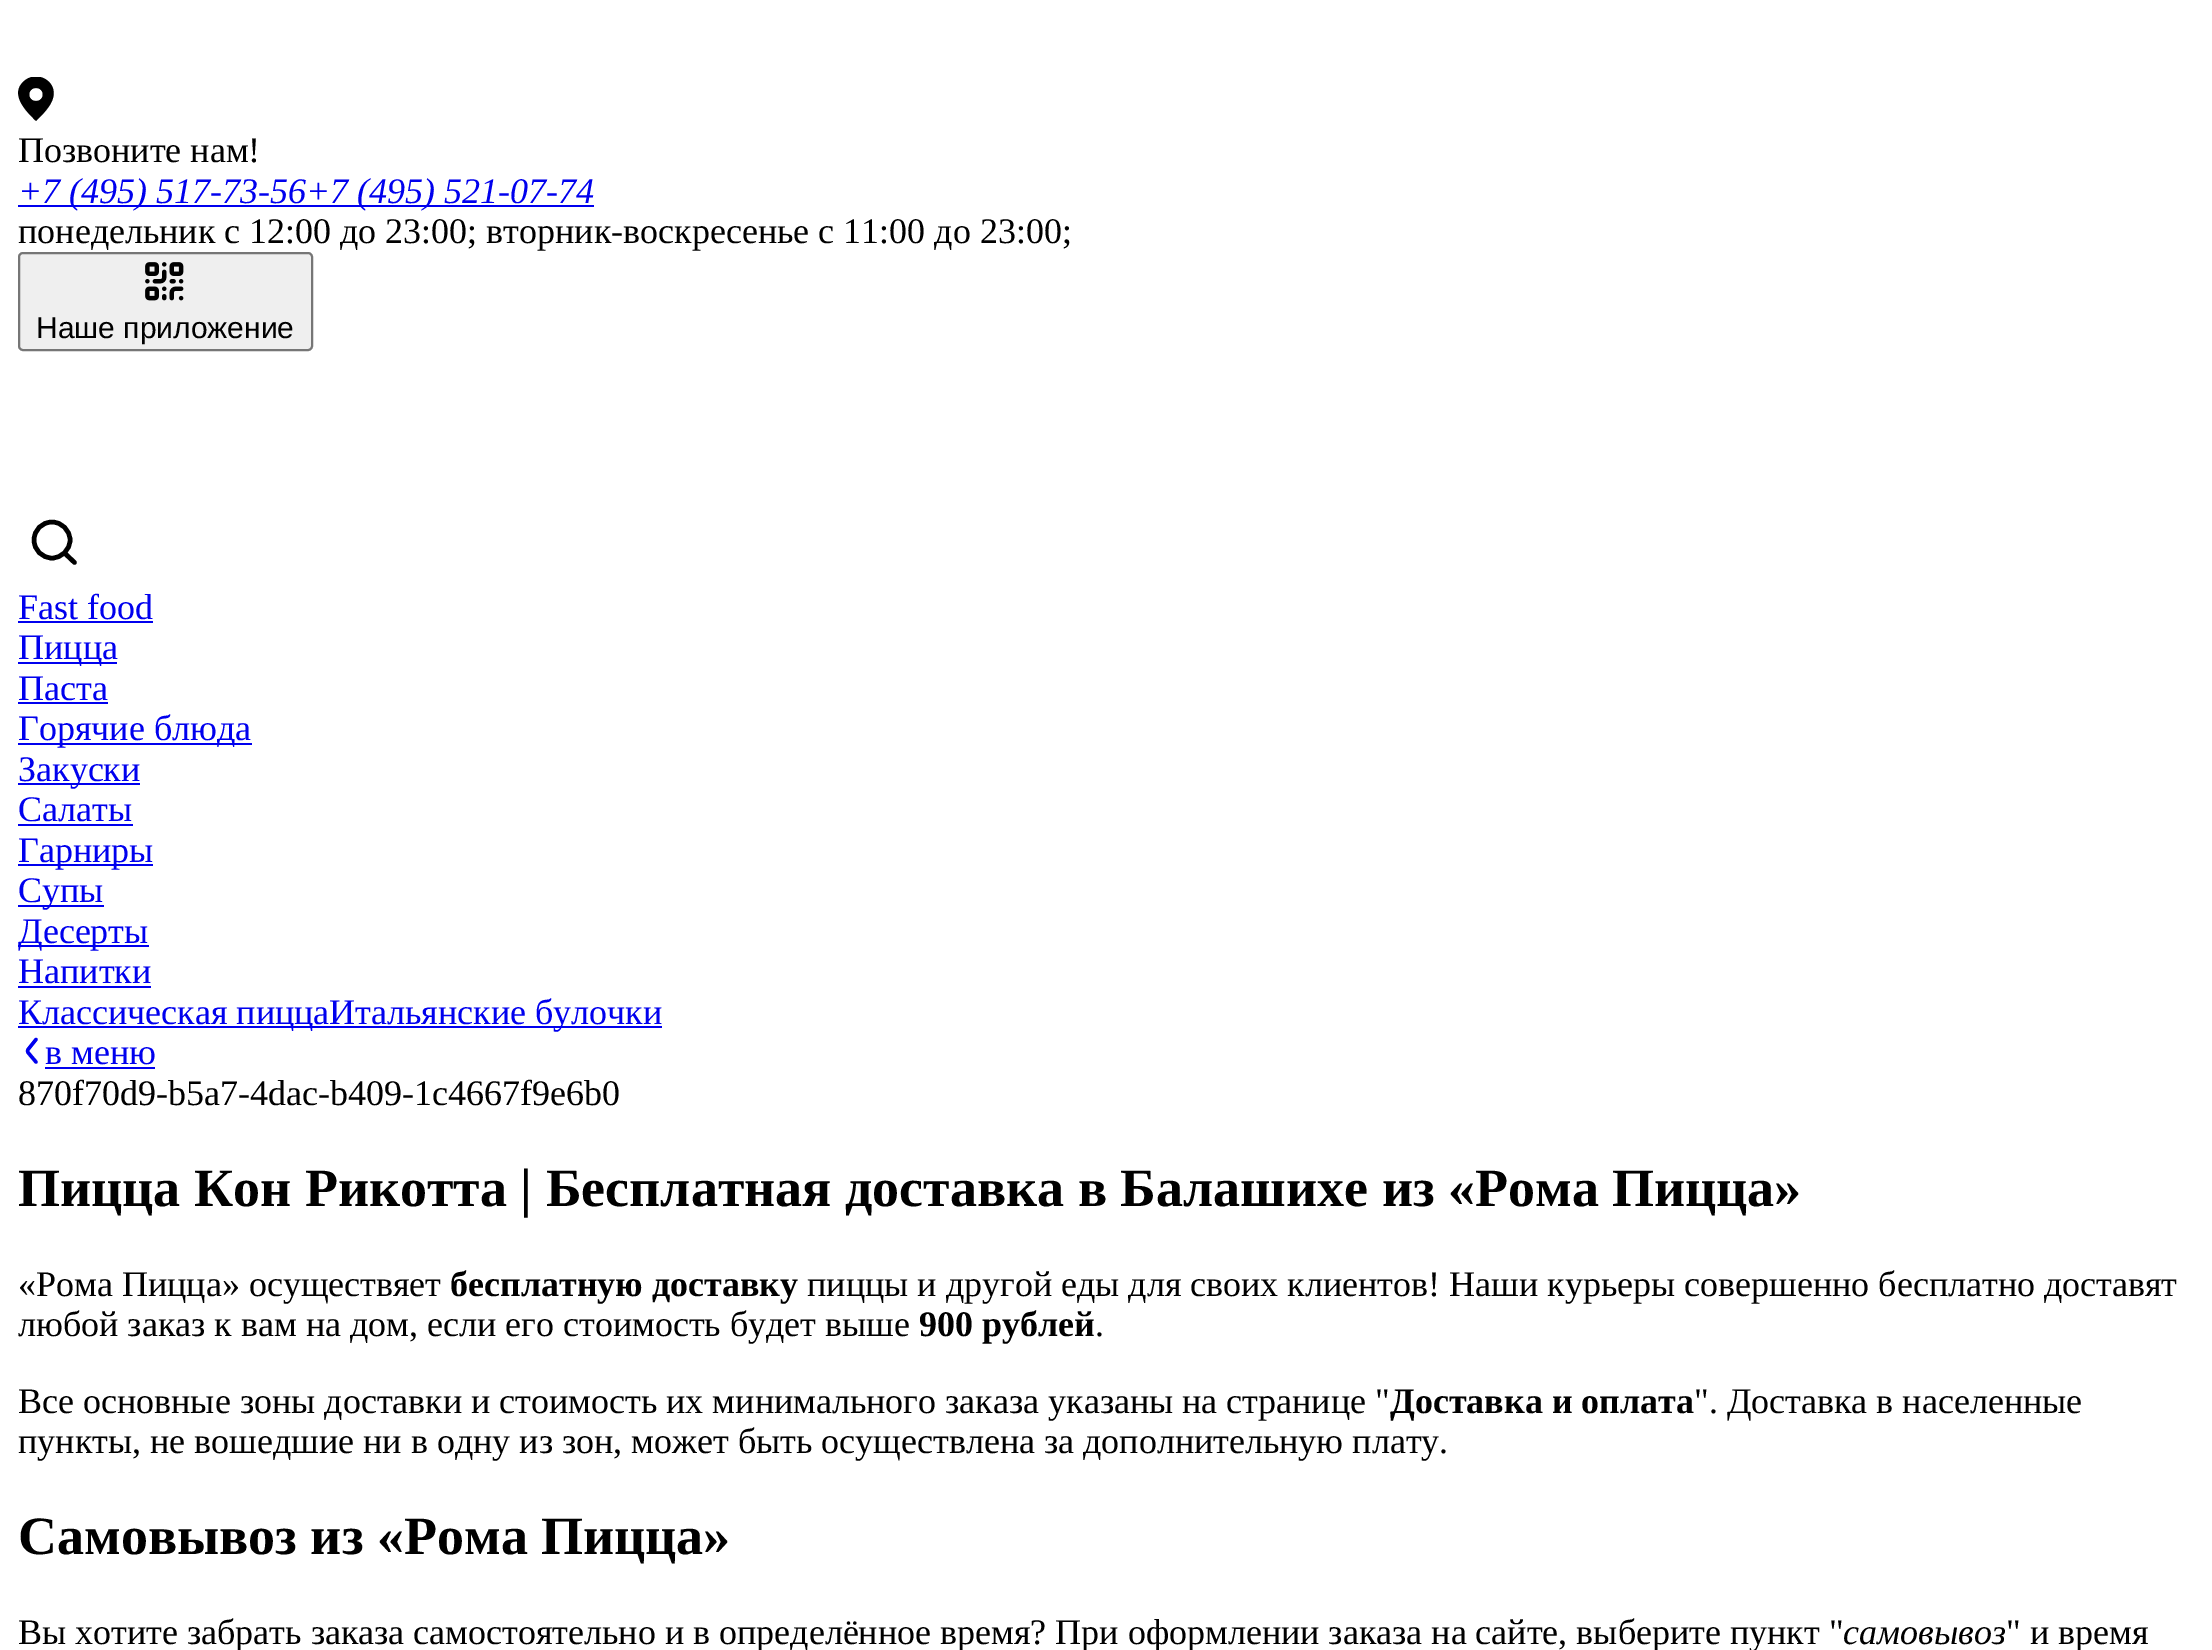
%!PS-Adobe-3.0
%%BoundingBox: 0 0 2212 1650
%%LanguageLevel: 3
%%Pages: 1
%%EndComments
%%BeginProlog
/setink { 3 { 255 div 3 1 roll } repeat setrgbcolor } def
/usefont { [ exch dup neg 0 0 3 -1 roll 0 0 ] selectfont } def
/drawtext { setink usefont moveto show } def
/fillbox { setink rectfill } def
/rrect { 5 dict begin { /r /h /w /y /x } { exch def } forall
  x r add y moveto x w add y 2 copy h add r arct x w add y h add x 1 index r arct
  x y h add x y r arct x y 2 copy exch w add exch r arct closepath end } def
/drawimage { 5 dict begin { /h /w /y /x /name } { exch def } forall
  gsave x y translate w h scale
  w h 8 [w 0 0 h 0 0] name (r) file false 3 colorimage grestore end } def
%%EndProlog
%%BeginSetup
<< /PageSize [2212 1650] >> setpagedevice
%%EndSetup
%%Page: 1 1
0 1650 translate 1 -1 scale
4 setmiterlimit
0 0 2212 1650 255 255 255 fillbox
gsave
18 77 36 45 rectclip
0 0 0 setink
37 120 moveto 43 114 51 106 53 98 curveto 58 81 36 69 23 82 curveto 11 94 24 109 33 118 curveto 34 119 36 122 37 120 curveto closepath 36 101 moveto 45 101 45 88 36 88 curveto 27 88 27 101 36 101 curveto closepath eofill
grestore
(Позвоните нам!) 18 162 /LiberationSerif-Regular 36 0 0 0 drawtext
18 205 288 2 0 0 238 fillbox
(+7 \(495\) 517-73-56) 18 203 /LiberationSerif-Italic 36 0 0 238 drawtext
306 205 288 2 0 0 238 fillbox
(+7 \(495\) 521-07-74) 306 203 /LiberationSerif-Italic 36 0 0 238 drawtext
(понедельник с 12:00 до 23:00; вторник-воскресенье с 11:00 до 23:00;) 18 243 /LiberationSerif-Regular 36 0 0 0 drawtext
239 239 239 setink
19 253 293 97 4 rrect gsave fill grestore
118 118 118 setink
2 setlinewidth
stroke
(assets/img1.rgb) 145 262 39 39 drawimage
(Наше приложение) 36 338 /LiberationSans-Regular 30 0 0 0 drawtext
4.5 setlinewidth
1 setlinecap
1 setlinejoin
52 558 moveto 61.5 558 70 550 70 540 curveto 70 530 61.5 522 52 522 curveto 42 522 34 530 34 540 curveto 34 550 42 558 52 558 curveto closepath 74.5 562.5 moveto 64.5 553 lineto stroke
(Fast food) 18 619 /LiberationSerif-Regular 36 0 0 238 drawtext
18 621 135 2 0 0 238 fillbox
18 662 99 2 0 0 238 fillbox
(Пицца) 18 659 /LiberationSerif-Regular 36 0 0 238 drawtext
(Паста) 18 700 /LiberationSerif-Regular 36 0 0 238 drawtext
18 702 90 2 0 0 238 fillbox
18 743 234 2 0 0 238 fillbox
(Горячие блюда) 18 740 /LiberationSerif-Regular 36 0 0 238 drawtext
18 783 122 2 0 0 238 fillbox
(Закуски) 18 781 /LiberationSerif-Regular 36 0 0 238 drawtext
(Салаты) 18 821 /LiberationSerif-Regular 36 0 0 238 drawtext
18 824 115 2 0 0 238 fillbox
18 864 135 2 0 0 238 fillbox
(Гарниры) 18 862 /LiberationSerif-Regular 36 0 0 238 drawtext
18 905 86 2 0 0 238 fillbox
(Супы) 18 902 /LiberationSerif-Regular 36 0 0 238 drawtext
18 945 131 2 0 0 238 fillbox
(Десерты) 18 943 /LiberationSerif-Regular 36 0 0 238 drawtext
(Напитки) 18 983 /LiberationSerif-Regular 36 0 0 238 drawtext
18 986 133 2 0 0 238 fillbox
18 1026 644 2 0 0 238 fillbox
(Классическая пиццаИтальянские булочки) 18 1024 /LiberationSerif-Regular 36 0 0 238 drawtext
(в меню) 45 1064 /LiberationSerif-Regular 36 0 0 238 drawtext
45 1067 110 2 0 0 238 fillbox
3.4 setlinewidth
0 setlinejoin
36 1039.5 moveto 28 1049.5 lineto 27.5 1050.5 27.5 1051.5 28 1052.5 curveto 36 1062 lineto stroke
(870f70d9-b5a7-4dac-b409-1c4667f9e6b0) 18 1105 /LiberationSerif-Regular 36 0 0 0 drawtext
(Пицца Кон Рикотта | Бесплатная доставка в Балашихе из «Рома Пицца») 18 1206 /LiberationSerif-Bold 54 0 0 0 drawtext
(«Рома Пицца» осуществяет) 18 1296 /LiberationSerif-Regular 36 0 0 0 drawtext
(бесплатную доставку) 450 1296 /LiberationSerif-Bold 36 0 0 0 drawtext
(пиццы и другой еды для своих клиентов! Наши курьеры совершенно бесплатно доставят) 807 1296 /LiberationSerif-Regular 36 0 0 0 drawtext
(любой заказ к вам на дом, если его стоимость будет выше) 18 1336 /LiberationSerif-Regular 36 0 0 0 drawtext
(900 рублей) 919 1336 /LiberationSerif-Bold 36 0 0 0 drawtext
(.) 1095 1336 /LiberationSerif-Regular 36 0 0 0 drawtext
(Все основные зоны доставки и стоимость их минимального заказа указаны на странице ") 18 1413 /LiberationSerif-Regular 36 0 0 0 drawtext
(Доставка и оплата) 1390 1413 /LiberationSerif-Bold 36 0 0 0 drawtext
(". Доставка в населенные) 1694 1413 /LiberationSerif-Regular 36 0 0 0 drawtext
(пункты, не вошедшие ни в одну из зон, может быть осуществлена за дополнительную плату.) 18 1453 /LiberationSerif-Regular 36 0 0 0 drawtext
(Самовывоз из «Рома Пицца») 18 1554 /LiberationSerif-Bold 54 0 0 0 drawtext
(Вы хотите забрать заказа самостоятельно и в определённое время? При оформлении заказа на сайте, выберите пункт ") 18 1644 /LiberationSerif-Regular 36 0 0 0 drawtext
(самовывоз) 1843 1644 /LiberationSerif-Italic 36 0 0 0 drawtext
(" и время) 2006 1644 /LiberationSerif-Regular 36 0 0 0 drawtext
showpage
%%EOF
